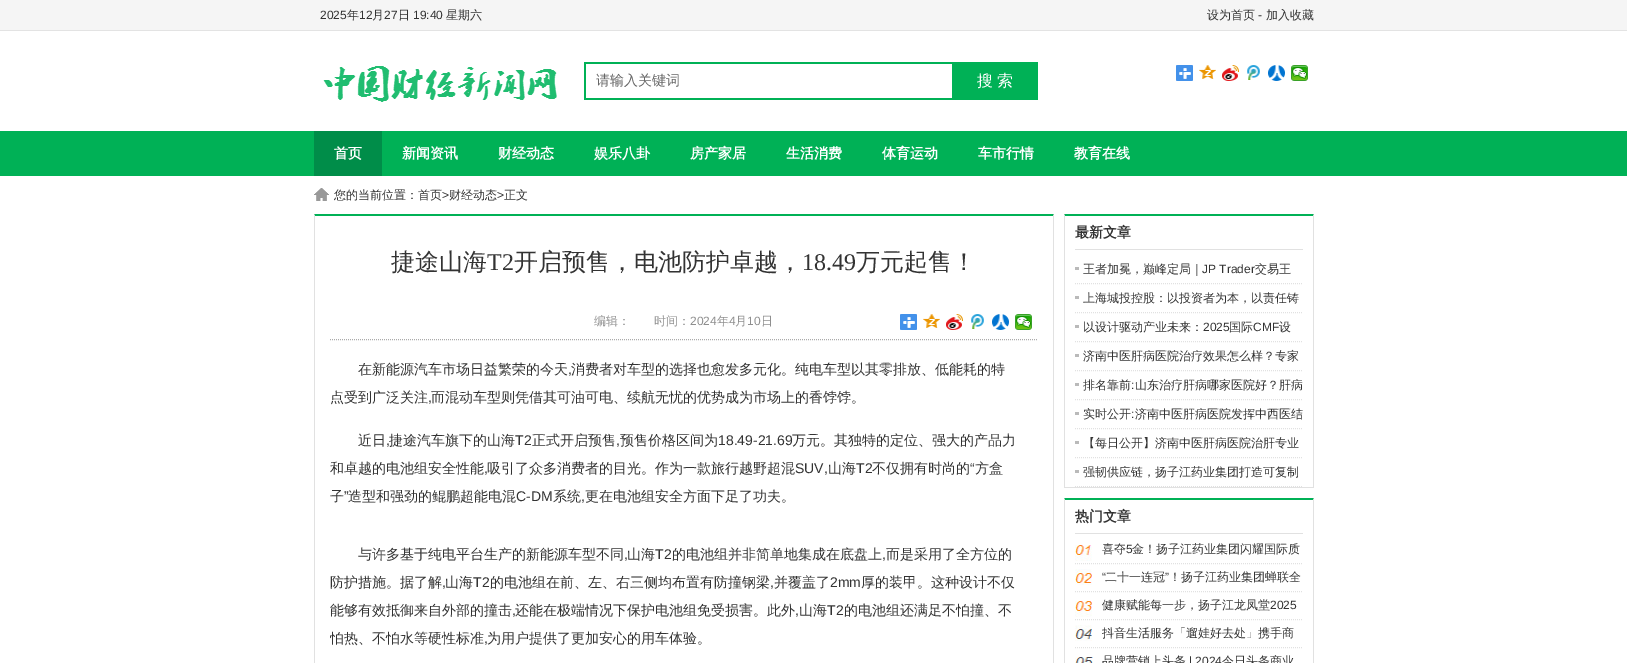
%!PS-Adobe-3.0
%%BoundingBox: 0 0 1627 663
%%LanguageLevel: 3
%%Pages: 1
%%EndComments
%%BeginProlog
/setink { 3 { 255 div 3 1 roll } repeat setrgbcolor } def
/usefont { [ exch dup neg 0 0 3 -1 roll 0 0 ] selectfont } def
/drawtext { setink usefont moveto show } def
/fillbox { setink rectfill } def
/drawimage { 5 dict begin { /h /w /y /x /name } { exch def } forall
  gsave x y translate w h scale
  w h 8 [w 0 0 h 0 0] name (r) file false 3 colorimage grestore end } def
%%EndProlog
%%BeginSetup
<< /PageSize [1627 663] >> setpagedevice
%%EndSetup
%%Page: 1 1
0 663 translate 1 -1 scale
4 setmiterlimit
0 0 1627 663 255 255 255 fillbox
0 0 1627 30 245 245 245 fillbox
0 30 1627 1 227 227 227 fillbox
(2025) 320 19 /LiberationSans-Regular 12 51 51 51 drawtext
(年) 347 19 /WenQuanYiZenHei-Medium 12 51 51 51 drawtext
(12) 359 19 /LiberationSans-Regular 12 51 51 51 drawtext
(月) 372 19 /WenQuanYiZenHei-Medium 12 51 51 51 drawtext
(27) 384 19 /LiberationSans-Regular 12 51 51 51 drawtext
(日) 398 19 /WenQuanYiZenHei-Medium 12 51 51 51 drawtext
(19:40) 413 19 /LiberationSans-Regular 12 51 51 51 drawtext
(星期六) 446 19 /WenQuanYiZenHei-Medium 12 51 51 51 drawtext
(设为首页) 1207 19 /WenQuanYiZenHei-Medium 12 51 51 51 drawtext
(-) 1258 19 /LiberationSans-Regular 12 51 51 51 drawtext
(加入收藏) 1266 19 /WenQuanYiZenHei-Medium 12 51 51 51 drawtext
(assets/img1.rgb) 323 66 234 36 drawimage
584 62 368 2 0 177 86 fillbox
584 98 368 2 0 177 86 fillbox
584 62 2 38 0 177 86 fillbox
(请输入关键词) 596 85 /WenQuanYiZenHei-Medium 14 102 102 102 drawtext
952 62 86 38 0 177 86 fillbox
/WenQuanYiZenHei-Medium 16 usefont
255 255 255 setink
977 86 moveto -1 0 32 (搜 索) widthshow
(assets/img2.rgb) 1176 65 17 16 drawimage
(assets/img3.rgb) 1199 65 17 14 drawimage
(assets/img4.rgb) 1222 65 17 16 drawimage
(assets/img5.rgb) 1247 65 13 15 drawimage
(assets/img6.rgb) 1268 65 17 16 drawimage
(assets/img7.rgb) 1291 65 17 16 drawimage
0 131 1627 45 0 177 86 fillbox
314 131 68 45 0 141 73 fillbox
(首页) 334 158 /WenQuanYiZenHei-Bold 14 255 255 255 drawtext
(新闻资讯) 402 158 /WenQuanYiZenHei-Bold 14 255 255 255 drawtext
(财经动态) 498 158 /WenQuanYiZenHei-Bold 14 255 255 255 drawtext
(娱乐八卦) 594 158 /WenQuanYiZenHei-Bold 14 255 255 255 drawtext
(房产家居) 690 158 /WenQuanYiZenHei-Bold 14 255 255 255 drawtext
(生活消费) 786 158 /WenQuanYiZenHei-Bold 14 255 255 255 drawtext
(体育运动) 882 158 /WenQuanYiZenHei-Bold 14 255 255 255 drawtext
(车市行情) 978 158 /WenQuanYiZenHei-Bold 14 255 255 255 drawtext
(教育在线) 1074 158 /WenQuanYiZenHei-Bold 14 255 255 255 drawtext
(assets/img8.rgb) 314 188 15 13 drawimage
(您的当前位置：首页) 334 199 /WenQuanYiZenHei-Medium 12 51 51 51 drawtext
(>) 442 199 /LiberationSans-Regular 12 51 51 51 drawtext
(财经动态) 449 199 /WenQuanYiZenHei-Medium 12 51 51 51 drawtext
(>) 497 199 /LiberationSans-Regular 12 51 51 51 drawtext
(正文) 504 199 /WenQuanYiZenHei-Medium 12 51 51 51 drawtext
0 177 86 setink
314 214 moveto 1054 214 lineto 1053 216 lineto 315 216 lineto closepath fill
225 225 225 setink
1054 214 moveto 1054 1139 lineto 1053 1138 lineto 1053 216 lineto closepath fill
314 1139 moveto 314 214 lineto 315 216 lineto 315 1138 lineto closepath fill
(捷途山海) 391 270 /WenQuanYiZenHei-Medium 24 51 51 51 drawtext
(T2) 487 270 /LiberationSerif-Regular 24 51 51 51 drawtext
(开启预售，电池防护卓越，) 514 270 /WenQuanYiZenHei-Medium 24 51 51 51 drawtext
(18.49) 802 270 /LiberationSerif-Regular 24 51 51 51 drawtext
(万元起售！) 856 270 /WenQuanYiZenHei-Medium 24 51 51 51 drawtext
171 171 171 setink
[1 1] 0 setdash
330 339.5 moveto 1038 339.5 lineto stroke
(编辑：) 594 325 /WenQuanYiZenHei-Medium 12 143 143 143 drawtext
(时间：) 654 325 /WenQuanYiZenHei-Medium 12 143 143 143 drawtext
(2024) 690 325 /LiberationSans-Regular 12 143 143 143 drawtext
(年) 717 325 /WenQuanYiZenHei-Medium 12 143 143 143 drawtext
(4) 729 325 /LiberationSans-Regular 12 143 143 143 drawtext
(月) 735 325 /WenQuanYiZenHei-Medium 12 143 143 143 drawtext
(10) 747 325 /LiberationSans-Regular 12 143 143 143 drawtext
(日) 761 325 /WenQuanYiZenHei-Medium 12 143 143 143 drawtext
(assets/img2.rgb) 900 314 17 16 drawimage
(assets/img9.rgb) 923 314 17 14 drawimage
(assets/img10.rgb) 946 314 17 16 drawimage
(assets/img5.rgb) 971 314 13 15 drawimage
(assets/img11.rgb) 992 314 17 16 drawimage
(assets/img7.rgb) 1015 314 17 16 drawimage
(在新能源汽车市场日益繁荣的今天) 358 374 /WenQuanYiZenHei-Medium 14 51 51 51 drawtext
(,) 568 374 /LiberationSans-Regular 14 51 51 51 drawtext
(消费者对车型的选择也愈发多元化。纯电车型以其零排放、低能耗的特) 571 374 /WenQuanYiZenHei-Medium 14 51 51 51 drawtext
(点受到广泛关注) 330 402 /WenQuanYiZenHei-Medium 14 51 51 51 drawtext
(,) 428 402 /LiberationSans-Regular 14 51 51 51 drawtext
(而混动车型则凭借其可油可电、续航无忧的优势成为市场上的香饽饽。) 431 402 /WenQuanYiZenHei-Medium 14 51 51 51 drawtext
(近日) 358 445 /WenQuanYiZenHei-Medium 14 51 51 51 drawtext
(,) 386 445 /LiberationSans-Regular 14 51 51 51 drawtext
(捷途汽车旗下的山海) 389 445 /WenQuanYiZenHei-Medium 14 51 51 51 drawtext
(T2) 515 445 /LiberationSans-Regular 14 51 51 51 drawtext
(正式开启预售) 532 445 /WenQuanYiZenHei-Medium 14 51 51 51 drawtext
(,) 616 445 /LiberationSans-Regular 14 51 51 51 drawtext
(预售价格区间为) 620 445 /WenQuanYiZenHei-Medium 14 51 51 51 drawtext
(18.49-21.69) 718 445 /LiberationSans-Regular 14 51 51 51 drawtext
(万元。其独特的定位、强大的产品力) 792 445 /WenQuanYiZenHei-Medium 14 51 51 51 drawtext
(和卓越的电池组安全性能) 330 473 /WenQuanYiZenHei-Medium 14 51 51 51 drawtext
(吸引了众多消费者的目光。作为一款旅行越野超混) 487 473 /WenQuanYiZenHei-Medium 14 51 51 51 drawtext
(SUV,) 795 473 /LiberationSans-Regular 14 51 51 51 drawtext
(山海) 828 473 /WenQuanYiZenHei-Medium 14 51 51 51 drawtext
(T2) 856 473 /LiberationSans-Regular 14 51 51 51 drawtext
(不仅拥有时尚的) 872 473 /WenQuanYiZenHei-Medium 14 51 51 51 drawtext
(“) 970 473 /LiberationSans-Regular 14 51 51 51 drawtext
(方盒) 975 473 /WenQuanYiZenHei-Medium 14 51 51 51 drawtext
(,) 484 473 /LiberationSans-Regular 14 51 51 51 drawtext
(子) 330 501 /WenQuanYiZenHei-Medium 14 51 51 51 drawtext
(”) 344 501 /LiberationSans-Regular 14 51 51 51 drawtext
(造型和强劲的鲲鹏超能电混) 348 501 /WenQuanYiZenHei-Medium 14 51 51 51 drawtext
(C-DM) 516 501 /LiberationSans-Regular 14 51 51 51 drawtext
(系统) 553 501 /WenQuanYiZenHei-Medium 14 51 51 51 drawtext
(,) 581 501 /LiberationSans-Regular 14 51 51 51 drawtext
(更在电池组安全方面下足了功夫。) 585 501 /WenQuanYiZenHei-Medium 14 51 51 51 drawtext
(与许多基于纯电平台生产的新能源车型不同) 358 559 /WenQuanYiZenHei-Medium 14 51 51 51 drawtext
(,) 624 559 /LiberationSans-Regular 14 51 51 51 drawtext
(山海) 627 559 /WenQuanYiZenHei-Medium 14 51 51 51 drawtext
(T2) 655 559 /LiberationSans-Regular 14 51 51 51 drawtext
(的电池组并非简单地集成在底盘上) 672 559 /WenQuanYiZenHei-Medium 14 51 51 51 drawtext
(,) 882 559 /LiberationSans-Regular 14 51 51 51 drawtext
(而是采用了全方位的) 886 559 /WenQuanYiZenHei-Medium 14 51 51 51 drawtext
(防护措施。据了解) 330 587 /WenQuanYiZenHei-Medium 14 51 51 51 drawtext
(,) 442 587 /LiberationSans-Regular 14 51 51 51 drawtext
(山海) 445 587 /WenQuanYiZenHei-Medium 14 51 51 51 drawtext
(T2) 473 587 /LiberationSans-Regular 14 51 51 51 drawtext
(的电池组在前、左、右三侧均布置有防撞钢梁) 490 587 /WenQuanYiZenHei-Medium 14 51 51 51 drawtext
(,) 770 587 /LiberationSans-Regular 14 51 51 51 drawtext
(并覆盖了) 774 587 /WenQuanYiZenHei-Medium 14 51 51 51 drawtext
(2mm) 830 587 /LiberationSans-Regular 14 51 51 51 drawtext
(厚的装甲。这种设计不仅) 861 587 /WenQuanYiZenHei-Medium 14 51 51 51 drawtext
(能够有效抵御来自外部的撞击) 330 615 /WenQuanYiZenHei-Medium 14 51 51 51 drawtext
(,) 512 615 /LiberationSans-Regular 14 51 51 51 drawtext
(还能在极端情况下保护电池组免受损害。此外) 515 615 /WenQuanYiZenHei-Medium 14 51 51 51 drawtext
(,) 795 615 /LiberationSans-Regular 14 51 51 51 drawtext
(山海) 799 615 /WenQuanYiZenHei-Medium 14 51 51 51 drawtext
(T2) 827 615 /LiberationSans-Regular 14 51 51 51 drawtext
(的电池组还满足不怕撞、不) 844 615 /WenQuanYiZenHei-Medium 14 51 51 51 drawtext
gsave
330 355 688 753 rectclip
(怕热、不怕水等硬性标准) 330 643 /WenQuanYiZenHei-Medium 14 51 51 51 drawtext
grestore
(,) 484 643 /LiberationSans-Regular 14 51 51 51 drawtext
(为用户提供了更加安心的用车体验。) 487 643 /WenQuanYiZenHei-Medium 14 51 51 51 drawtext
0 177 86 setink
1064 214 moveto 1314 214 lineto 1313 216 lineto 1065 216 lineto closepath fill
225 225 225 setink
1314 214 moveto 1314 488 lineto 1313 487 lineto 1313 216 lineto closepath fill
1064 487 250 1 225 225 225 fillbox
1064 488 moveto 1064 214 lineto 1065 216 lineto 1065 487 lineto closepath fill
1075 249 228 1 225 225 225 fillbox
(最新文章) 1075 237 /WenQuanYiZenHei-Bold 14 51 51 51 drawtext
1075 267 4 3 186 186 186 fillbox
225 225 225 setink
1075 283.5 moveto 1303 283.5 lineto stroke
(王者加冕，巅峰定局｜) 1083 273 /WenQuanYiZenHei-Medium 12 51 51 51 drawtext
(JP Trader) 1202 273 /LiberationSans-Regular 12 51 51 51 drawtext
(交易王) 1255 273 /WenQuanYiZenHei-Medium 12 51 51 51 drawtext
1075 296 4 3 186 186 186 fillbox
225 225 225 setink
1075 312.5 moveto 1303 312.5 lineto stroke
(上海城投控股：以投资者为本，以责任铸) 1083 302 /WenQuanYiZenHei-Medium 12 51 51 51 drawtext
1075 325 4 3 186 186 186 fillbox
225 225 225 setink
1075 341.5 moveto 1303 341.5 lineto stroke
(以设计驱动产业未来：) 1083 331 /WenQuanYiZenHei-Medium 12 51 51 51 drawtext
(2025) 1203 331 /LiberationSans-Regular 12 51 51 51 drawtext
(国际) 1229 331 /WenQuanYiZenHei-Medium 12 51 51 51 drawtext
(CMF) 1253 331 /LiberationSans-Regular 12 51 51 51 drawtext
(设) 1279 331 /WenQuanYiZenHei-Medium 12 51 51 51 drawtext
1075 354 4 3 186 186 186 fillbox
225 225 225 setink
1075 370.5 moveto 1303 370.5 lineto stroke
(济南中医肝病医院治疗效果怎么样？专家) 1083 360 /WenQuanYiZenHei-Medium 12 51 51 51 drawtext
1075 383 4 3 186 186 186 fillbox
225 225 225 setink
1075 399.5 moveto 1303 399.5 lineto stroke
(排名靠前 山东治疗肝病哪家医院好？肝病) 1083 389 /WenQuanYiZenHei-Medium 12 51 51 51 drawtext
(:) 1131 389 /LiberationSans-Regular 12 51 51 51 drawtext
1075 412 4 3 186 186 186 fillbox
225 225 225 setink
1075 428.5 moveto 1303 428.5 lineto stroke
(实时公开 济南中医肝病医院发挥中西医结) 1083 418 /WenQuanYiZenHei-Medium 12 51 51 51 drawtext
(:) 1131 418 /LiberationSans-Regular 12 51 51 51 drawtext
1075 441 4 3 186 186 186 fillbox
225 225 225 setink
1075 457.5 moveto 1303 457.5 lineto stroke
(【每日公开】济南中医肝病医院治肝专业) 1083 447 /WenQuanYiZenHei-Medium 12 51 51 51 drawtext
1075 470 4 3 186 186 186 fillbox
225 225 225 setink
1075 486.5 moveto 1303 486.5 lineto stroke
(强韧供应链，扬子江药业集团打造可复制) 1083 476 /WenQuanYiZenHei-Medium 12 51 51 51 drawtext
0 177 86 setink
1064 498 moveto 1314 498 lineto 1313 500 lineto 1065 500 lineto closepath fill
225 225 225 setink
1314 498 moveto 1314 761 lineto 1313 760 lineto 1313 500 lineto closepath fill
1064 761 moveto 1064 498 lineto 1065 500 lineto 1065 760 lineto closepath fill
1075 533 228 1 225 225 225 fillbox
(热门文章) 1075 521 /WenQuanYiZenHei-Bold 14 51 51 51 drawtext
(assets/img12.rgb) 1075 545 18 118 drawimage
225 225 225 setink
1075 563.5 moveto 1303 563.5 lineto stroke
(喜夺) 1102 553 /WenQuanYiZenHei-Medium 12 51 51 51 drawtext
(5) 1126 553 /LiberationSans-Regular 12 51 51 51 drawtext
(金！扬子江药业集团闪耀国际质) 1132 553 /WenQuanYiZenHei-Medium 12 51 51 51 drawtext
225 225 225 setink
1075 591.5 moveto 1303 591.5 lineto stroke
(“) 1102 581 /LiberationSans-Regular 12 51 51 51 drawtext
(二十一连冠) 1105 581 /WenQuanYiZenHei-Medium 12 51 51 51 drawtext
(”) 1165 581 /LiberationSans-Regular 12 51 51 51 drawtext
(！扬子江药业集团蝉联全) 1169 581 /WenQuanYiZenHei-Medium 12 51 51 51 drawtext
225 225 225 setink
1075 619.5 moveto 1303 619.5 lineto stroke
(健康赋能每一步，扬子江龙凤堂) 1102 609 /WenQuanYiZenHei-Medium 12 51 51 51 drawtext
(2025) 1270 609 /LiberationSans-Regular 12 51 51 51 drawtext
225 225 225 setink
1075 647.5 moveto 1303 647.5 lineto stroke
(抖音生活服务「遛娃好去处」携手商) 1102 637 /WenQuanYiZenHei-Medium 12 51 51 51 drawtext
(品牌营销上头条) 1102 665 /WenQuanYiZenHei-Medium 12 51 51 51 drawtext
(| 2024) 1189 665 /LiberationSans-Regular 12 51 51 51 drawtext
(今日头条商业) 1222 665 /WenQuanYiZenHei-Medium 12 51 51 51 drawtext
showpage
%%EOF
